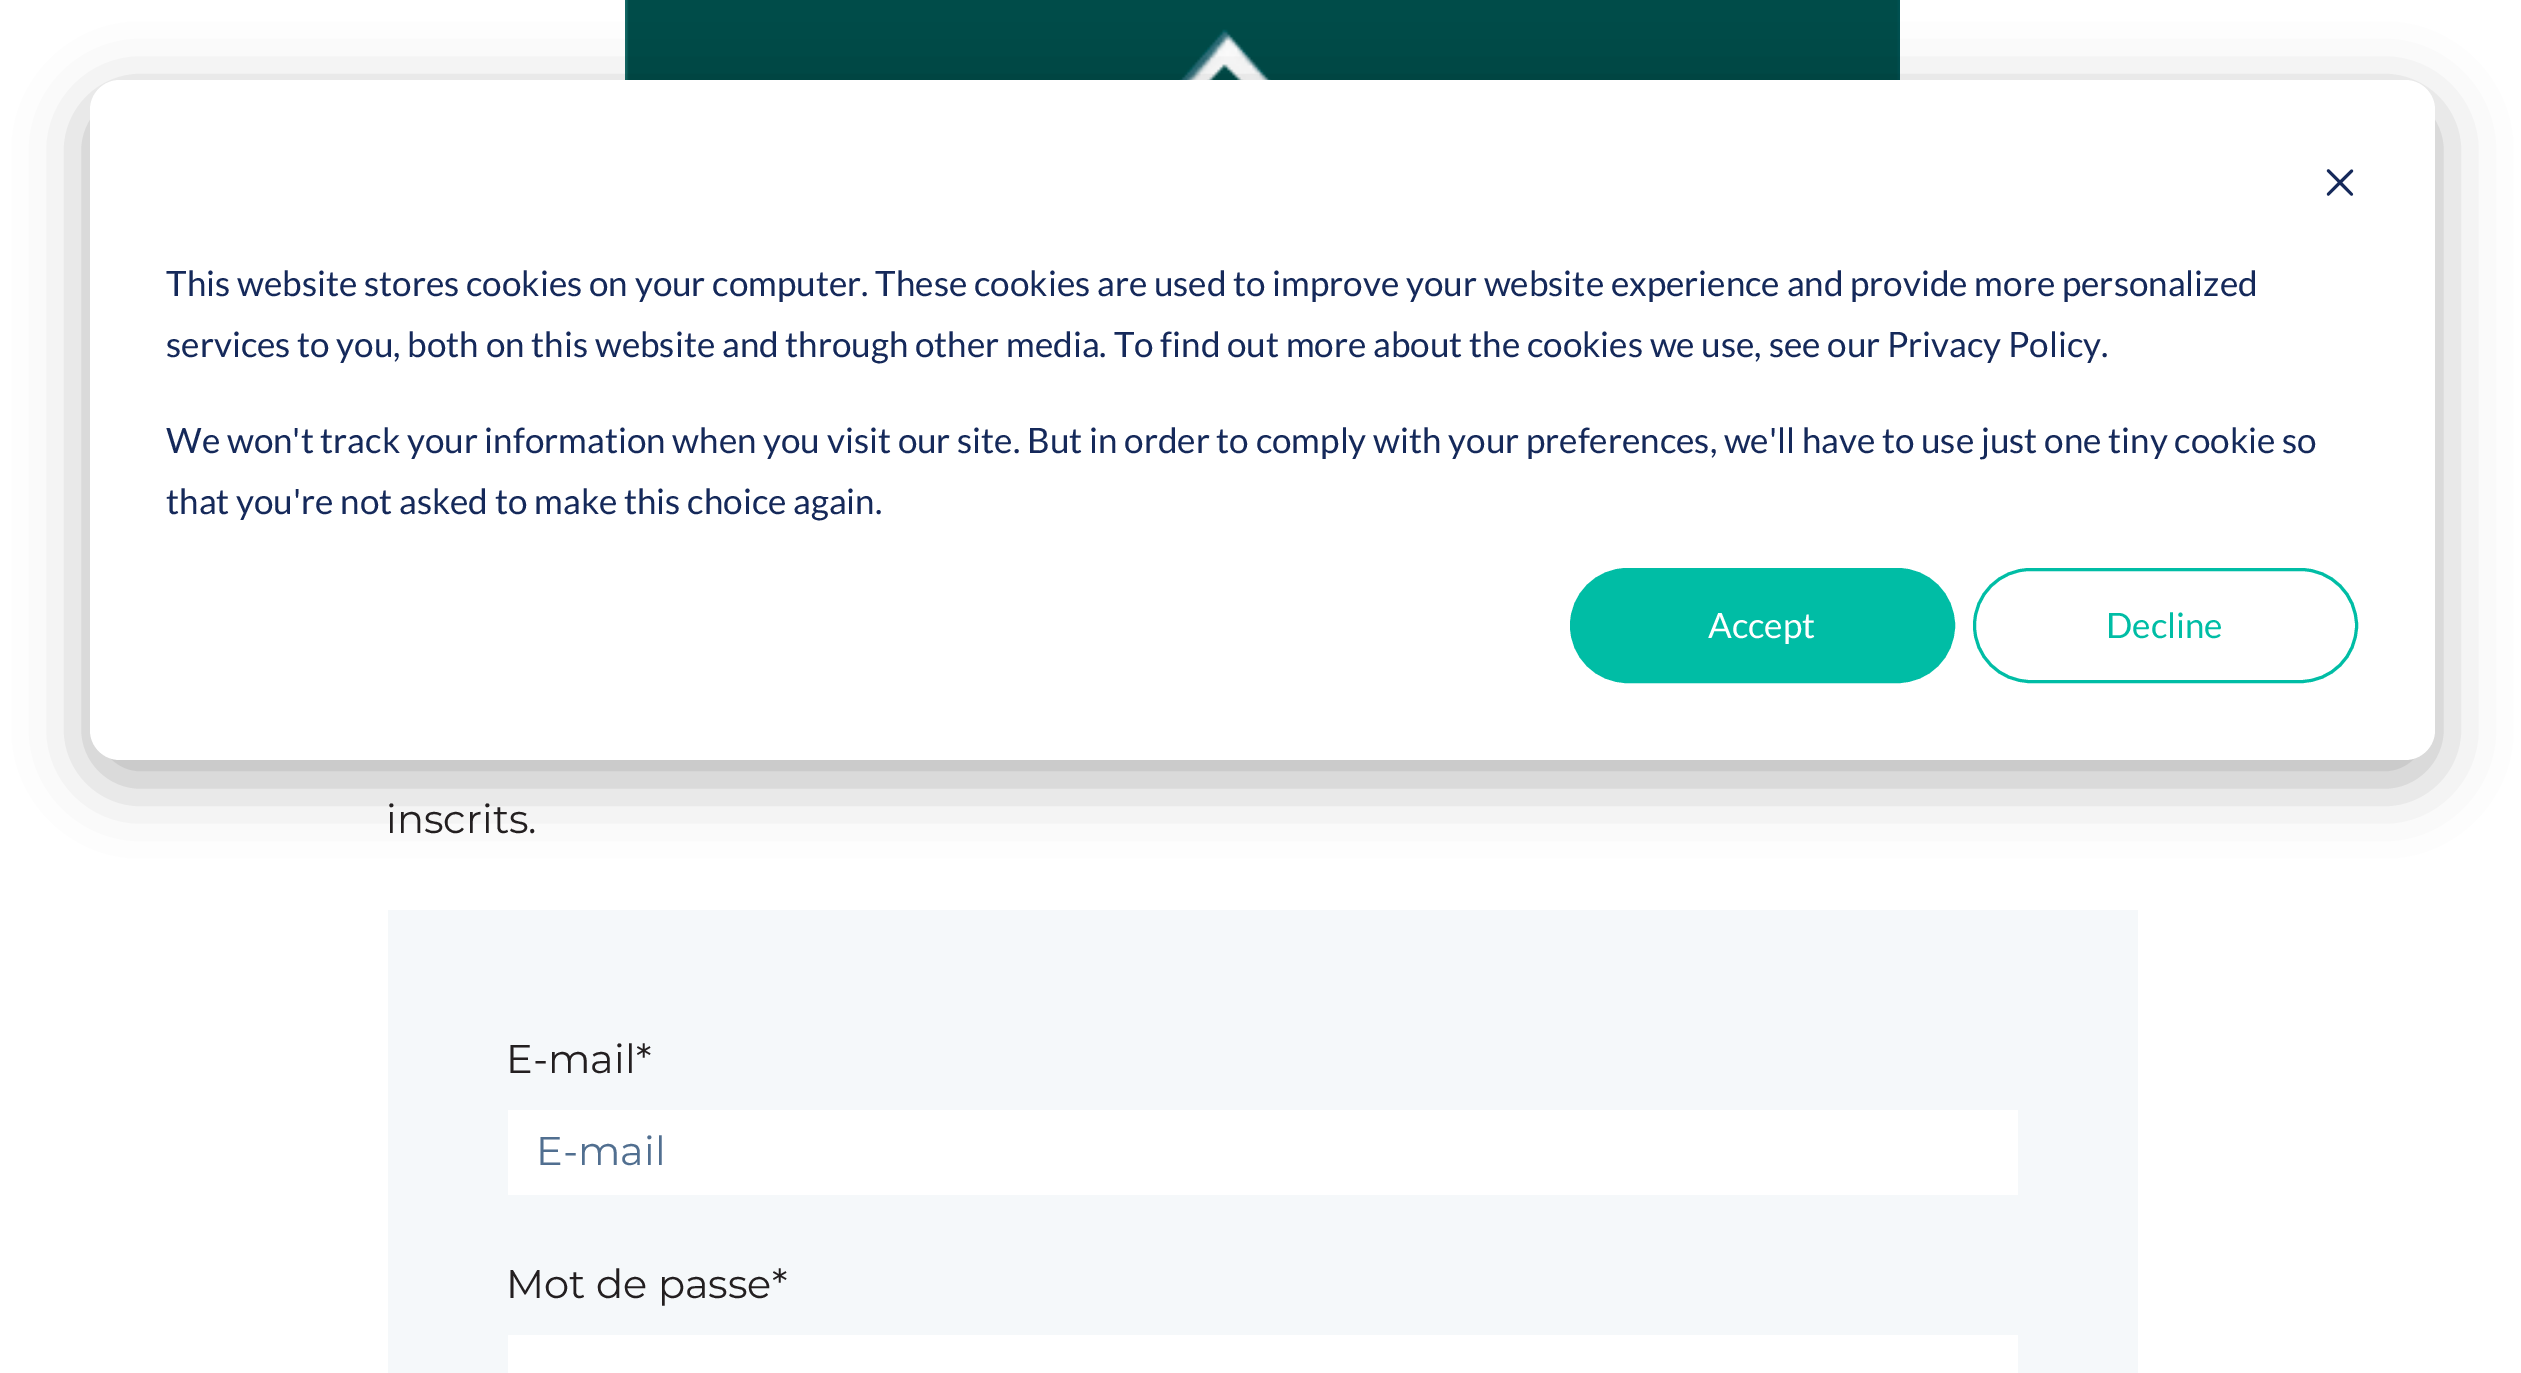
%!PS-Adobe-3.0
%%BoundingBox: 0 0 2521 1373
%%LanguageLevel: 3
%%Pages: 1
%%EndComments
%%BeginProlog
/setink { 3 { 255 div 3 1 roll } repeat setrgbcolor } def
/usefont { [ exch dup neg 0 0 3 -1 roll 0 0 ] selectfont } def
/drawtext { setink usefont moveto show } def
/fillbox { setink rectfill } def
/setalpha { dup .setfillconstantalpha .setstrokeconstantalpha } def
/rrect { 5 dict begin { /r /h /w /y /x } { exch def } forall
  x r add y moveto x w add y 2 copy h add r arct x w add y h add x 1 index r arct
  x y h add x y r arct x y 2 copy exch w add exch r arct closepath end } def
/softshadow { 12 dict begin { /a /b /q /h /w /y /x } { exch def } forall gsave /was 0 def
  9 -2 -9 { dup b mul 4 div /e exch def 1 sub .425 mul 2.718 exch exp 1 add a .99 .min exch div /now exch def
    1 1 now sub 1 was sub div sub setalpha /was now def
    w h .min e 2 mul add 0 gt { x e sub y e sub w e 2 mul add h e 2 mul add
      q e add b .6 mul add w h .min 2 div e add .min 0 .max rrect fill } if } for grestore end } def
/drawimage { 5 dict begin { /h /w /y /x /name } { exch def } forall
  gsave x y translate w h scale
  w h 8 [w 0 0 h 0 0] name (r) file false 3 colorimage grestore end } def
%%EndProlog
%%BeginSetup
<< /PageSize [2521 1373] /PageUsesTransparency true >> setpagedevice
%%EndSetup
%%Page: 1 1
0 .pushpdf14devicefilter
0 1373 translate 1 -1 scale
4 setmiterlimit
0 0 2521 1373 255 255 255 fillbox
(assets/img2.rgb) 625 0 1275 80 drawimage
0 0 0 setink
90 100 2345 680 30 35 0.28 softshadow
255 255 255 setink
90 80 2345 680 30 rrect fill
(assets/img1.rgb) 2326 169 28 27 drawimage
(This website stores cookies on your computer. These cookies are used to improve your website experience and provide more personalized) 166 296 /Lato-Regular 35 21 41 90 drawtext
(services to you, both on this website and through other media. To find out more about the cookies we use, see our Privacy Policy.) 166 357 /Lato-Regular 35 21 41 90 drawtext
(We won't track your information when you visit our site. But in order to comply with your preferences, we'll have to use just one tiny cookie so) 166 453 /Lato-Regular 35 21 41 90 drawtext
(that you're not asked to make this choice again.) 166 514 /Lato-Regular 35 21 41 90 drawtext
0 189 165 setink
1571.5 569.5 382 112 56 rrect gsave fill grestore
3 setlinewidth
stroke
(Accept) 1708 638 /Lato-Regular 35 255 255 255 drawtext
0 189 165 setink
1974.5 569.5 382 112 56 rrect stroke
(Decline) 2106 638 /Lato-Regular 35 0 189 165 drawtext
(inscrits.) 386 833 /Montserrat-Regular 40 35 31 32 drawtext
388 910 1750 463 245 248 250 fillbox
(E-mail*) 506 1073 /Montserrat-Regular 40 35 31 32 drawtext
508 1110 1510 85 255 255 255 fillbox
(E-mail) 536 1165 /Montserrat-Regular 40 81 111 144 drawtext
(Mot de passe*) 506 1298 /Montserrat-Regular 40 35 31 32 drawtext
508 1335 1510 38 255 255 255 fillbox
.poppdf14devicefilter showpage
%%EOF
